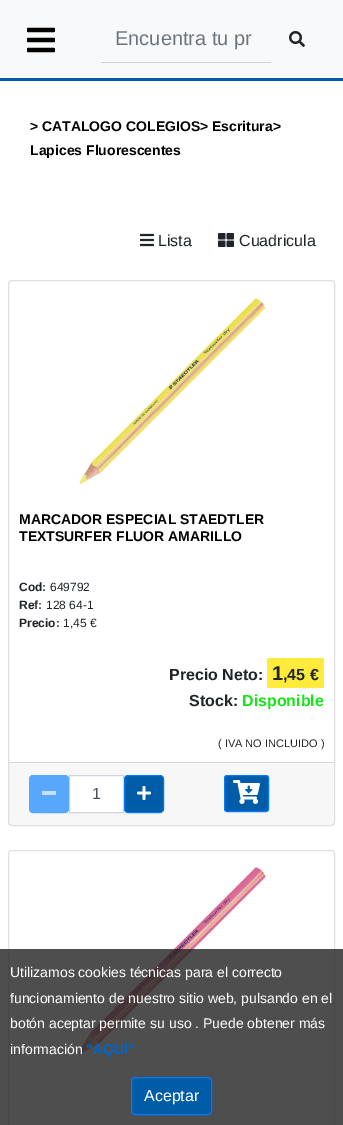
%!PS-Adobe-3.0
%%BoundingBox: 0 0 343 1125
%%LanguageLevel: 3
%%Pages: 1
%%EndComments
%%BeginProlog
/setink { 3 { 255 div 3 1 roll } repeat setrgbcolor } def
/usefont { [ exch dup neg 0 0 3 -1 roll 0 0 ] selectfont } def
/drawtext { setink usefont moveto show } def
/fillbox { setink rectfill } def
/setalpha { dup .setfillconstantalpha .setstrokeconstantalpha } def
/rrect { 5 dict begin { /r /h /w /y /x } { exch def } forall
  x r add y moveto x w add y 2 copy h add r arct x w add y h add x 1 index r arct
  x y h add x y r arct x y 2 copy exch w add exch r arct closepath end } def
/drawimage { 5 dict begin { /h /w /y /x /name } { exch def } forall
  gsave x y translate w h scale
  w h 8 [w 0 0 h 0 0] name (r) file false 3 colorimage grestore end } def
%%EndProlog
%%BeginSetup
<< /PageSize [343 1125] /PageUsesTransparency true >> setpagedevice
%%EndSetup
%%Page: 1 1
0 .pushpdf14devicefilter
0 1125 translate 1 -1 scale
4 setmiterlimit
0 0 343 1125 255 255 255 fillbox
0 0 343 78 248 249 250 fillbox
0 78 343 3 0 92 167 fillbox
(assets/img1.rgb) 27 27 28 26 drawimage
101 62 170 1 206 212 218 fillbox
(Encuentra tu pr) 115 45 /LiberationSans-Regular 20 108 117 125 drawtext
(assets/img2.rgb) 289 31 16 16 drawimage
(> CATALOGO COLEGIOS> Escritura>) 30 131 /LiberationSans-Bold 14 0 0 0 drawtext
(Lapices Fluorescentes) 30 155 /LiberationSans-Bold 14 0 0 0 drawtext
(assets/img3.rgb) 140 233 14 14 drawimage
(Lista) 158 246 /LiberationSans-Regular 16 33 37 41 drawtext
(assets/img4.rgb) 218 233 16 14 drawimage
(Cuadricula) 239 246 /LiberationSans-Regular 16 33 37 41 drawtext
223 223 223 setink
8.5 280.5 326 545 3.5 rrect stroke
(assets/img5.rgb) 77 296 189 189 drawimage
(MARCADOR ESPECIAL STAEDTLER) 19 524 /LiberationSans-Bold 14 0 0 0 drawtext
(TEXTSURFER FLUOR AMARILLO) 19 541 /LiberationSans-Bold 14 0 0 0 drawtext
(Cod:) 19 591 /LiberationSans-Bold 12 33 37 41 drawtext
(649792) 50 591 /LiberationSans-Regular 12 33 37 41 drawtext
(Ref:) 19 609 /LiberationSans-Bold 12 33 37 41 drawtext
(128 64-1) 46 609 /LiberationSans-Regular 12 33 37 41 drawtext
(Precio:) 19 627 /LiberationSans-Bold 12 33 37 41 drawtext
(1,45 €) 63 627 /LiberationSans-Regular 12 33 37 41 drawtext
(Precio Neto:) 169 680 /LiberationSans-Bold 16 33 37 41 drawtext
267 658 57 30 255 235 59 fillbox
(1) 272 680 /LiberationSans-Bold 20 33 37 41 drawtext
(,45 €) 283 680 /LiberationSans-Bold 16 33 37 41 drawtext
(Stock:) 189 706 /LiberationSans-Bold 16 33 37 41 drawtext
(Disponible) 242 706 /LiberationSans-Bold 16 19 231 19 drawtext
(\( IVA NO INCLUIDO \)) 218 747 /LiberationSans-Regular 11 33 37 41 drawtext
0.03 setalpha
9 763 325 62 0 0 0 fillbox
1 setalpha
9 762 325 1 216 216 216 fillbox
87 167 252 setink
29.5 775.5 39 37 3.5 rrect gsave fill grestore
stroke
42 791 14 4 196 224 254 fillbox
255 255 255 setink
69.5 775.5 moveto 123.5 775.5 lineto 123.5 812.5 lineto 69.5 812.5 lineto closepath gsave fill grestore
206 212 218 setink
stroke
(1) 92 799 /LiberationSans-Regular 16 73 80 87 drawtext
0 92 167 setink
124.5 775.5 39 37 3.5 rrect gsave fill grestore
0 123 255 setink
stroke
(assets/img6.rgb) 137 786 14 14 drawimage
0 92 167 setink
224.5 775.5 44 36 2.5 rrect gsave fill grestore
0 123 255 setink
stroke
(assets/img7.rgb) 233 780 27 24 drawimage
223 223 223 setink
8.5 850.5 326 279 3.5 rrect stroke
(assets/img8.rgb) 77 866 189 189 drawimage
0.8 setalpha
0 949 343 176 34 34 34 fillbox
1 setalpha
(Utilizamos cookies técnicas para el correcto) 10 977 /LiberationSans-Regular 14 255 255 255 drawtext
(funcionamiento de nuestro sitio web, pulsando en el) 10 1003 /LiberationSans-Regular 14 255 255 255 drawtext
(botón aceptar permite su uso . Puede obtener más) 10 1028 /LiberationSans-Regular 14 255 255 255 drawtext
(información) 10 1054 /LiberationSans-Regular 14 255 255 255 drawtext
("AQUÍ") 86 1054 /LiberationSans-Bold 14 0 102 204 drawtext
0 92 167 setink
131.5 1077.5 80 37 3.5 rrect gsave fill grestore
0 123 255 setink
stroke
(Aceptar) 144 1101 /LiberationSans-Regular 16 255 255 255 drawtext
.poppdf14devicefilter showpage
%%EOF
